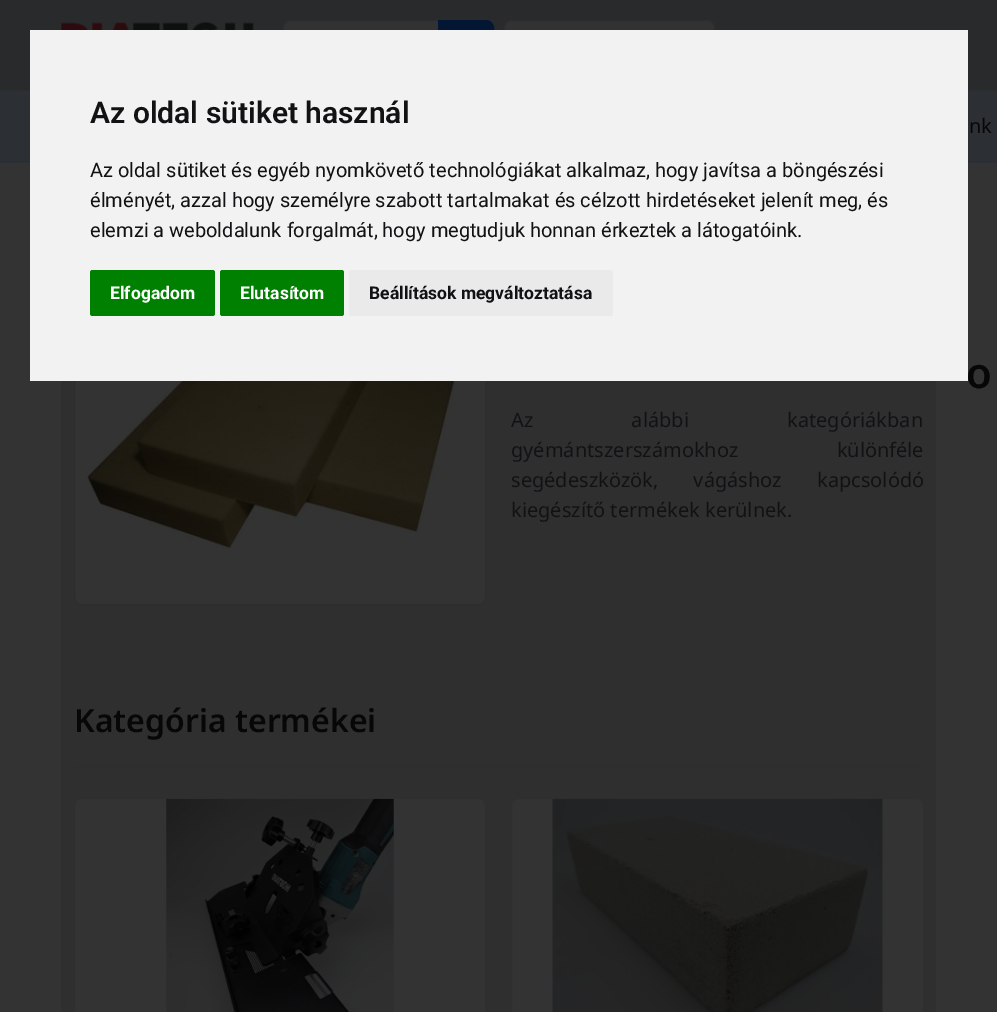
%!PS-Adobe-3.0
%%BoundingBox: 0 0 997 1012
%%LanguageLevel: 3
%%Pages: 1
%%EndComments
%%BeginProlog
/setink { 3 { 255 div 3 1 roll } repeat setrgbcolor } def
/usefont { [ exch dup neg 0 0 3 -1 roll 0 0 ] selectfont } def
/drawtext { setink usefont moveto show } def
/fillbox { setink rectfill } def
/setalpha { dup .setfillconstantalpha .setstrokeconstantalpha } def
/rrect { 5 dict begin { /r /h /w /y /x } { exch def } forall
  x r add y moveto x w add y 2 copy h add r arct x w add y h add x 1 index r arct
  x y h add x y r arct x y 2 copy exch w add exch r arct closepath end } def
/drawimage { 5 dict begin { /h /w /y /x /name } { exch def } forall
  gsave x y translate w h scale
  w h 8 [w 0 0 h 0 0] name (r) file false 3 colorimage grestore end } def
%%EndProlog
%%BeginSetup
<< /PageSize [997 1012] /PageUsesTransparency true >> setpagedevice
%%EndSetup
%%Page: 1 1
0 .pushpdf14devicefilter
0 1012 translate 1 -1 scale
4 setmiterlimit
0 0 997 1012 51 51 51 fillbox
0 0 997 90 41 42 43 fillbox
0 90 997 1 44 45 46 fillbox
(assets/img1.rgb) 61 22 193 8 drawimage
50 50 50 setink
290 21 moveto 438 21 lineto 438 69 lineto 290 69 lineto 286.5 69 284 66.5 284 63 curveto 284 27 lineto 284 23.5 286.5 21 290 21 curveto closepath fill
44 45 46 setink
291 20.5 moveto 438.5 20.5 lineto 438.5 69.5 lineto 291 69.5 lineto 287 69.5 283.5 66 283.5 62 curveto 283.5 28 lineto 283.5 24 287 20.5 291 20.5 curveto closepath stroke
3 22 51 setink
438.5 20.5 moveto 486 20.5 lineto 490 20.5 493.5 24 493.5 28 curveto 493.5 62 lineto 493.5 66 490 69.5 486 69.5 curveto 438.5 69.5 lineto closepath gsave fill grestore
stroke
50 50 50 setink
504.5 20.5 210 49 7.5 rrect gsave fill grestore
44 45 46 setink
stroke
0 91 997 72 44 47 51 fillbox
0 161 997 1 44 45 46 fillbox
61 381 875 631 47 47 48 fillbox
51 51 51 setink
74.5 293.5 411 311 7.5 rrect gsave fill grestore
44 45 46 setink
stroke
30 30 938 351 242 242 242 fillbox
(Az oldal sütiket használ) 90 123 /Roboto-SemiBold 30 16 18 19 drawtext
(Az oldal sütiket és egyéb nyomkövető technológiákat alkalmaz, hogy javítsa a böngészési) 90 177 /Roboto-Regular 20 16 18 19 drawtext
(élményét, azzal hogy személyre szabott tartalmakat és célzott hirdetéseket jelenít meg, és) 90 207 /Roboto-Regular 20 16 18 19 drawtext
(elemzi a weboldalunk forgalmát, hogy megtudjuk honnan érkeztek a látogatóink.) 90 237 /Roboto-Regular 20 16 18 19 drawtext
0 128 0 setink
90 270 125 46 2.5 rrect fill
(Elfogadom) 110 299 /Roboto-Bold 17.5 255 255 255 drawtext
0 128 0 setink
220 270 124 46 2.5 rrect fill
(Elutasítom) 240 299 /Roboto-Bold 17.5 255 255 255 drawtext
234 234 234 setink
349 270 264 46 2.5 rrect fill
(Beállítások megváltoztatása) 369 299 /Roboto-Bold 17.5 16 18 19 drawtext
(nk) 969 133 /NotoSans-Regular 20 7 7 8 drawtext
(assets/img2.rgb) 80 381 383 169 drawimage
(o) 966 388 /NotoSans-SemiBold 42 7 7 8 drawtext
/NotoSans-Regular 20 usefont
16 18 19 setink
511 427 moveto 93 0 32 (Az alábbi kategóriákban) widthshow
511 457 moveto 93 0 32 (gyémántszerszámokhoz különféle) widthshow
511 487 moveto 30 0 32 (segédeszközök, vágáshoz kapcsolódó) widthshow
(kiegészítő termékek kerülnek.) 511 517 /NotoSans-Regular 20 16 18 19 drawtext
74 766 850 1 44 45 46 fillbox
(Kategória termékei) 74 732 /NotoSans-SemiBold 32 7 7 8 drawtext
51 51 51 setink
74 798 412 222 8 rrect fill
0.12 setalpha
16 18 19 setink
74.5 798.5 411 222 7.5 rrect stroke
1 setalpha
(assets/img3.rgb) 166 798 228 214 drawimage
51 51 51 setink
511 798 413 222 8 rrect fill
0.12 setalpha
16 18 19 setink
511.5 798.5 412 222 7.5 rrect stroke
1 setalpha
(assets/img4.rgb) 552 798 331 214 drawimage
.poppdf14devicefilter showpage
%%EOF
